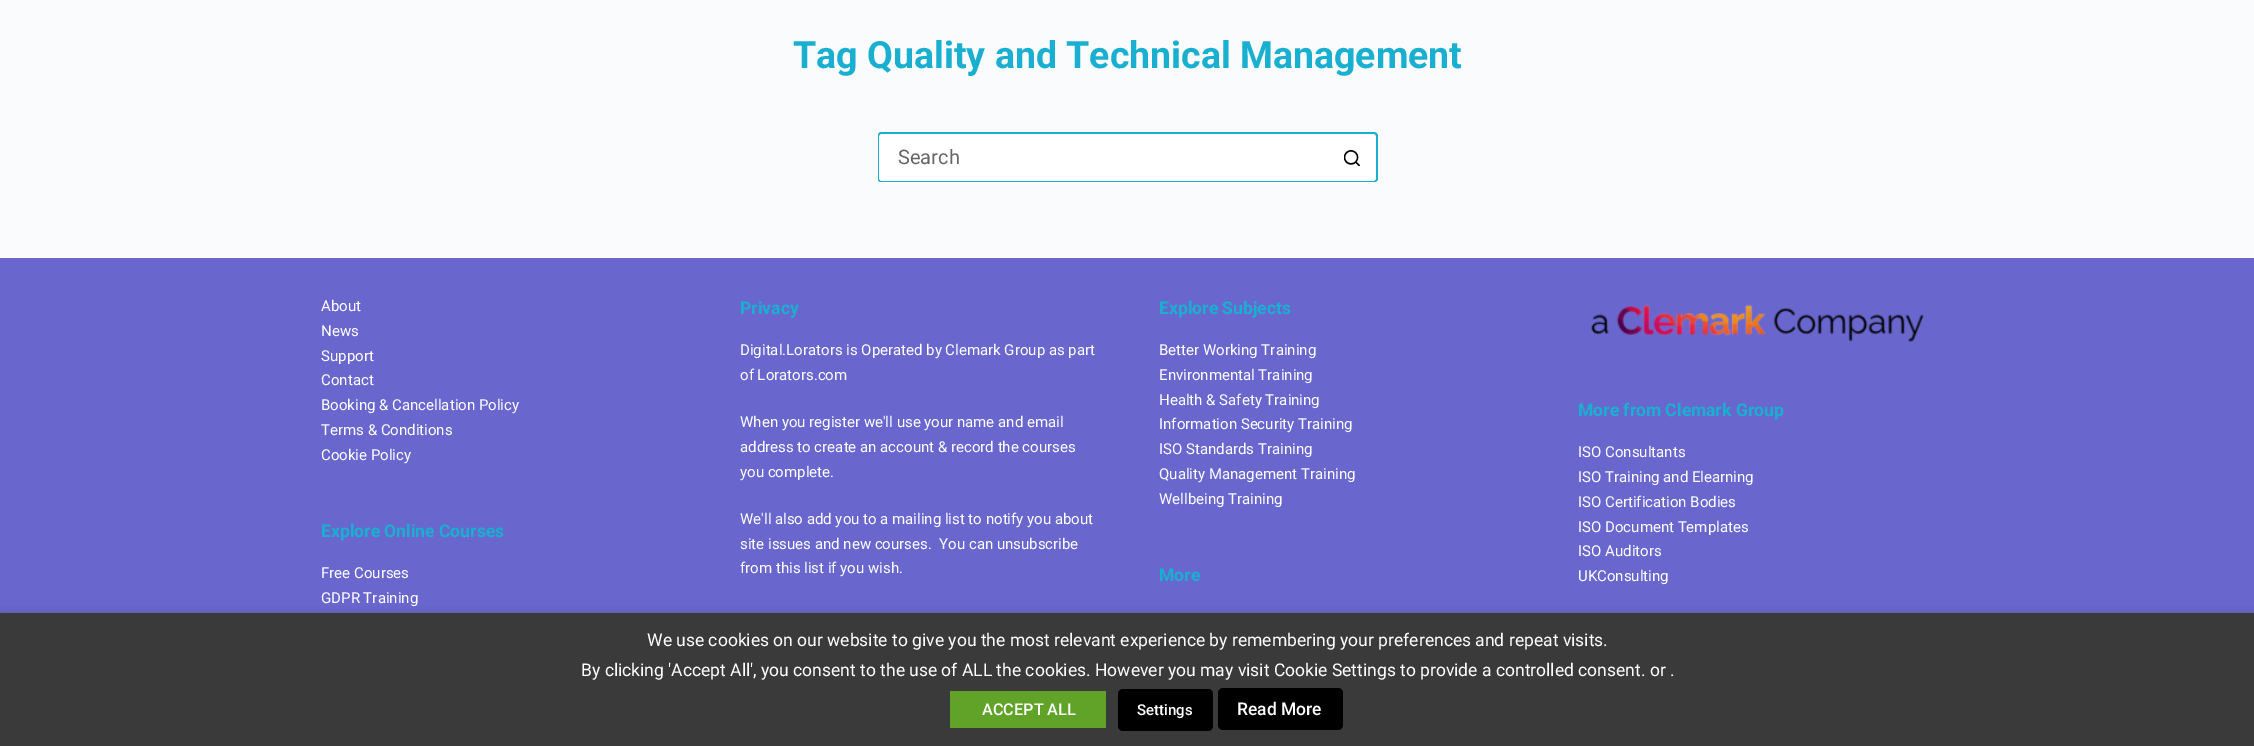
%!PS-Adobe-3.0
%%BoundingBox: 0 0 2254 746
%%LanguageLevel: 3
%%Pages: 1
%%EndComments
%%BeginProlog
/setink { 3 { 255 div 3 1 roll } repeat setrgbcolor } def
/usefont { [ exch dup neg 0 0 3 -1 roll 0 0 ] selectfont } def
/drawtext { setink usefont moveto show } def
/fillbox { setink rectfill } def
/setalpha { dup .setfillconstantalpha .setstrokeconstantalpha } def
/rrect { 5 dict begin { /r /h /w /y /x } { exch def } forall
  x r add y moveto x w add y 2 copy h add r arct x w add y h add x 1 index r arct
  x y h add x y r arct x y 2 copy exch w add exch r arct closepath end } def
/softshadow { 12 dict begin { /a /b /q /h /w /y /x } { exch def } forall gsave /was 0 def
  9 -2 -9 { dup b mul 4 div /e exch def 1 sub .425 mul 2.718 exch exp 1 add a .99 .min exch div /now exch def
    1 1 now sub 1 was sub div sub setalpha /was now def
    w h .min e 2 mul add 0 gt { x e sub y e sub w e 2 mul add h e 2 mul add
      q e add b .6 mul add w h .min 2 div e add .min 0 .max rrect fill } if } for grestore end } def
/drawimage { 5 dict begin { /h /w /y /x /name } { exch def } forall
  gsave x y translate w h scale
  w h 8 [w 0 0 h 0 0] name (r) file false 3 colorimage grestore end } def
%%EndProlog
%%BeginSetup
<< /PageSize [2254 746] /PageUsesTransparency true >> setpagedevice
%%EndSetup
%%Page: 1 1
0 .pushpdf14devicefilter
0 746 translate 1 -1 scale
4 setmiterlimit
0 0 2254 746 250 251 252 fillbox
(Tag Quality and Technical Management) 793 68 /Roboto-Bold 37.5 25 175 208 drawtext
255 255 255 setink
882 133 moveto 1328 133 lineto 1328 183 lineto 882 183 lineto 880 183 878 181 878 179 curveto 878 137 lineto 878 135 880 133 882 133 curveto closepath fill
25 175 208 setink
881 132 moveto 1328 132 lineto 1328 182 lineto 881 182 lineto 879 182 878 181 878 179 curveto 878 136 lineto 878 134 879 132 881 132 curveto closepath 881 134 moveto 1328 134 lineto 1328 181 lineto 881 181 lineto 880 181 879 180 879 179 curveto 879 136 lineto 879 135 880 134 881 134 curveto closepath eofill
(Search) 898 164 /Roboto-Regular 20 102 102 102 drawtext
255 255 255 setink
1328 133 moveto 1374 133 lineto 1376 133 1378 135 1378 137 curveto 1378 179 lineto 1378 181 1376 183 1374 183 curveto 1328 183 lineto closepath fill
25 175 208 setink
1328 132 moveto 1374 132 lineto 1376 132 1378 134 1378 136 curveto 1378 179 lineto 1378 181 1376 182 1374 182 curveto 1328 182 lineto closepath 1328 134 moveto 1374 134 lineto 1375 134 1376 135 1376 136 curveto 1376 179 lineto 1376 180 1375 181 1374 181 curveto 1328 181 lineto closepath eofill
(assets/img1.rgb) 1344 150 16 16 drawimage
0 258 2254 355 105 103 206 fillbox
(About) 321 311 /Roboto-Regular 15 255 255 255 drawtext
(News) 321 336 /Roboto-Regular 15 255 255 255 drawtext
(Support) 321 361 /Roboto-Regular 15 255 255 255 drawtext
(Contact) 321 385 /Roboto-Regular 15 255 255 255 drawtext
(Booking & Cancellation Policy) 321 410 /Roboto-Regular 15 255 255 255 drawtext
(Terms & Conditions) 321 435 /Roboto-Regular 15 255 255 255 drawtext
(Cookie Policy) 321 460 /Roboto-Regular 15 255 255 255 drawtext
(Explore Online Courses) 321 537 /Roboto-Bold 17.5 25 175 208 drawtext
(Free Courses) 321 578 /Roboto-Regular 15 255 255 255 drawtext
(GDPR Training) 321 603 /Roboto-Regular 15 255 255 255 drawtext
(Privacy) 740 314 /Roboto-Bold 17.5 25 175 208 drawtext
(Digital.Lorators is Operated by Clemark Group as part) 740 355 /Roboto-Regular 15 255 255 255 drawtext
(of Lorators.com) 740 380 /Roboto-Regular 15 255 255 255 drawtext
(When you register we'll use your name and email) 740 427 /Roboto-Regular 15 255 255 255 drawtext
(address to create an account & record the courses) 740 452 /Roboto-Regular 15 255 255 255 drawtext
(you complete.) 740 477 /Roboto-Regular 15 255 255 255 drawtext
(We'll also add you to a mailing list to notify you about) 740 524 /Roboto-Regular 15 255 255 255 drawtext
(site issues and new courses.  You can unsubscribe) 740 549 /Roboto-Regular 15 255 255 255 drawtext
(from this list if you wish.) 740 573 /Roboto-Regular 15 255 255 255 drawtext
(Explore Subjects) 1159 314 /Roboto-Bold 17.5 25 175 208 drawtext
(Better Working Training) 1159 355 /Roboto-Regular 15 255 255 255 drawtext
(Environmental Training) 1159 380 /Roboto-Regular 15 255 255 255 drawtext
(Health & Safety Training) 1159 405 /Roboto-Regular 15 255 255 255 drawtext
(Information Security Training) 1159 429 /Roboto-Regular 15 255 255 255 drawtext
(ISO Standards Training) 1159 454 /Roboto-Regular 15 255 255 255 drawtext
(Quality Management Training) 1159 479 /Roboto-Regular 15 255 255 255 drawtext
(Wellbeing Training) 1159 504 /Roboto-Regular 15 255 255 255 drawtext
(More) 1159 581 /Roboto-Bold 17.5 25 175 208 drawtext
(assets/img2.rgb) 1590 304 334 38 drawimage
(More from Clemark Group) 1578 416 /Roboto-Bold 17.5 25 175 208 drawtext
(ISO Consultants) 1578 457 /Roboto-Regular 15 255 255 255 drawtext
(ISO Training and Elearning) 1578 482 /Roboto-Regular 15 255 255 255 drawtext
(ISO Certification Bodies) 1578 507 /Roboto-Regular 15 255 255 255 drawtext
(ISO Document Templates) 1578 532 /Roboto-Regular 15 255 255 255 drawtext
(ISO Auditors) 1578 556 /Roboto-Regular 15 255 255 255 drawtext
(UKConsulting) 1578 581 /Roboto-Regular 15 255 255 255 drawtext
0 0 0 setink
0 619 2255 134 0 6 0.5 softshadow
0 613 2254 133 58 58 58 fillbox
(We use cookies on our website to give you the most relevant experience by remembering your preferences and repeat visits.) 647 646 /Roboto-Regular 17.5 255 255 255 drawtext
(By clicking 'Accept All', you consent to the use of ALL the cookies. However you may visit Cookie Settings to provide a controlled consent. or .) 581 676 /Roboto-Regular 17.5 255 255 255 drawtext
950 691 156 37 97 162 41 fillbox
(ACCEPT ALL) 982 715 /Roboto-Medium 16.25 255 255 255 drawtext
0 0 0 setink
1118 689 95 42 5 rrect fill
(Settings) 1137 715 /Roboto-Medium 15 255 255 255 drawtext
0 0 0 setink
1218 688 125 42 5 rrect fill
(Read More) 1237 715 /Roboto-Medium 17.5 255 255 255 drawtext
.poppdf14devicefilter showpage
%%EOF
